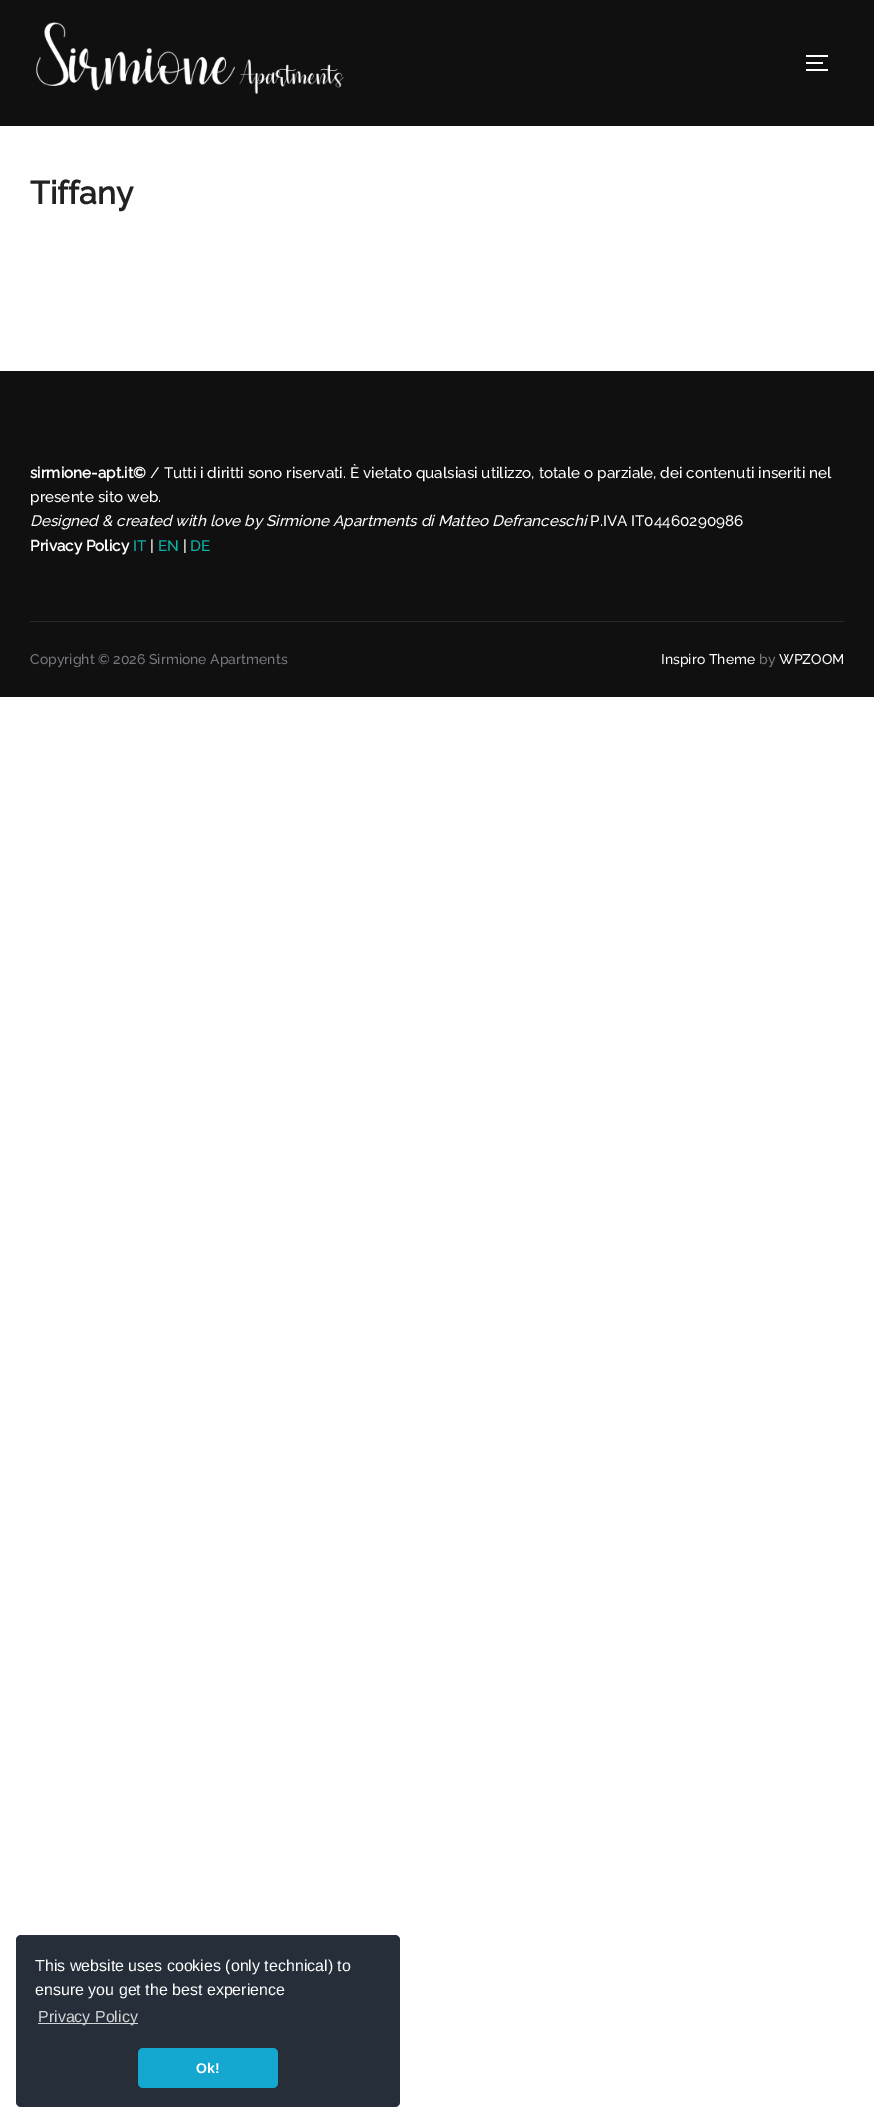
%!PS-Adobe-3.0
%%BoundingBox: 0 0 874 2123
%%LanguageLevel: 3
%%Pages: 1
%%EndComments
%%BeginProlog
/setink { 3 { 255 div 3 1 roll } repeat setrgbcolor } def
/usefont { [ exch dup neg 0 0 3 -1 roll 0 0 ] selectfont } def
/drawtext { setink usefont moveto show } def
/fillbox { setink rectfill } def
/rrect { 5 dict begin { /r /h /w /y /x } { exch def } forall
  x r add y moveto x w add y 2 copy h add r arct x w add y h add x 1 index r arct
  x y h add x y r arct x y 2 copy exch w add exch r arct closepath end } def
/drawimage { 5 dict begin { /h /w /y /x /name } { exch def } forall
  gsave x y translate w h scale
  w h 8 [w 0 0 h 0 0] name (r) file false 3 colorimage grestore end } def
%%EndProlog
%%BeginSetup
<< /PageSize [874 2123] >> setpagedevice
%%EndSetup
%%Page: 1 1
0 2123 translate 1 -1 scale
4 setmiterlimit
0 0 874 2123 255 255 255 fillbox
0 0 874 126 16 16 16 fillbox
(assets/img1.rgb) 36 22 308 72 drawimage
806 55 22 2 255 255 255 fillbox
806 62 17 2 255 255 255 fillbox
806 69 22 2 255 255 255 fillbox
(Tiffany) 30 204 /Raleway-Bold 32 34 34 34 drawtext
0 371 874 326 16 16 16 fillbox
(sirmione-apt.it©) 30 478 /Raleway-Bold 15.25 255 255 255 drawtext
(/ Tutti i diritti sono riservati. È vietato qualsiasi utilizzo, totale o parziale, dei contenuti inseriti nel) 150 478 /Raleway-Thin 15.25 255 255 255 drawtext
(presente sito web.) 30 502 /Raleway-Thin 15.25 255 255 255 drawtext
(Designed & created with love by Sirmione Apartments di Matteo Defranceschi) 30 526 /Raleway-ThinItalic 15.25 255 255 255 drawtext
(P.IVA IT04460290986) 590 526 /Raleway-Thin 15.25 255 255 255 drawtext
(Privacy Policy) 30 551 /Raleway-Bold 15.25 255 255 255 drawtext
(IT) 133 551 /Raleway-Thin 15.25 11 180 170 drawtext
(|) 150 551 /Raleway-Thin 15.25 255 255 255 drawtext
(EN) 158 551 /Raleway-Thin 15.25 11 180 170 drawtext
(|) 183 551 /Raleway-Thin 15.25 255 255 255 drawtext
(DE) 190 551 /Raleway-Thin 15.25 11 180 170 drawtext
30 621 814 1 40 40 40 fillbox
(Copyright © 2026 Sirmione Apartments) 30 664 /Raleway-Thin 14 120 120 127 drawtext
(Inspiro Theme) 661 664 /Raleway-Thin 14 255 255 255 drawtext
(by) 759 664 /Raleway-Thin 14 120 120 127 drawtext
(WPZOOM) 779 664 /Raleway-Thin 14 255 255 255 drawtext
37 46 57 setink
16 1935 384 172 5 rrect fill
(This website uses cookies \(only technical\) to) 35 1971 /LiberationSans-Regular 16 255 255 255 drawtext
(ensure you get the best experience) 35 1995 /LiberationSans-Regular 16 255 255 255 drawtext
38 2023 100 1 211 213 215 fillbox
(Privacy Policy) 38 2022 /LiberationSans-Regular 16 211 213 215 drawtext
20 167 208 setink
138 2048 140 40 5 rrect fill
(Ok!) 196 2073 /LiberationSans-Bold 14 255 255 255 drawtext
showpage
%%EOF
